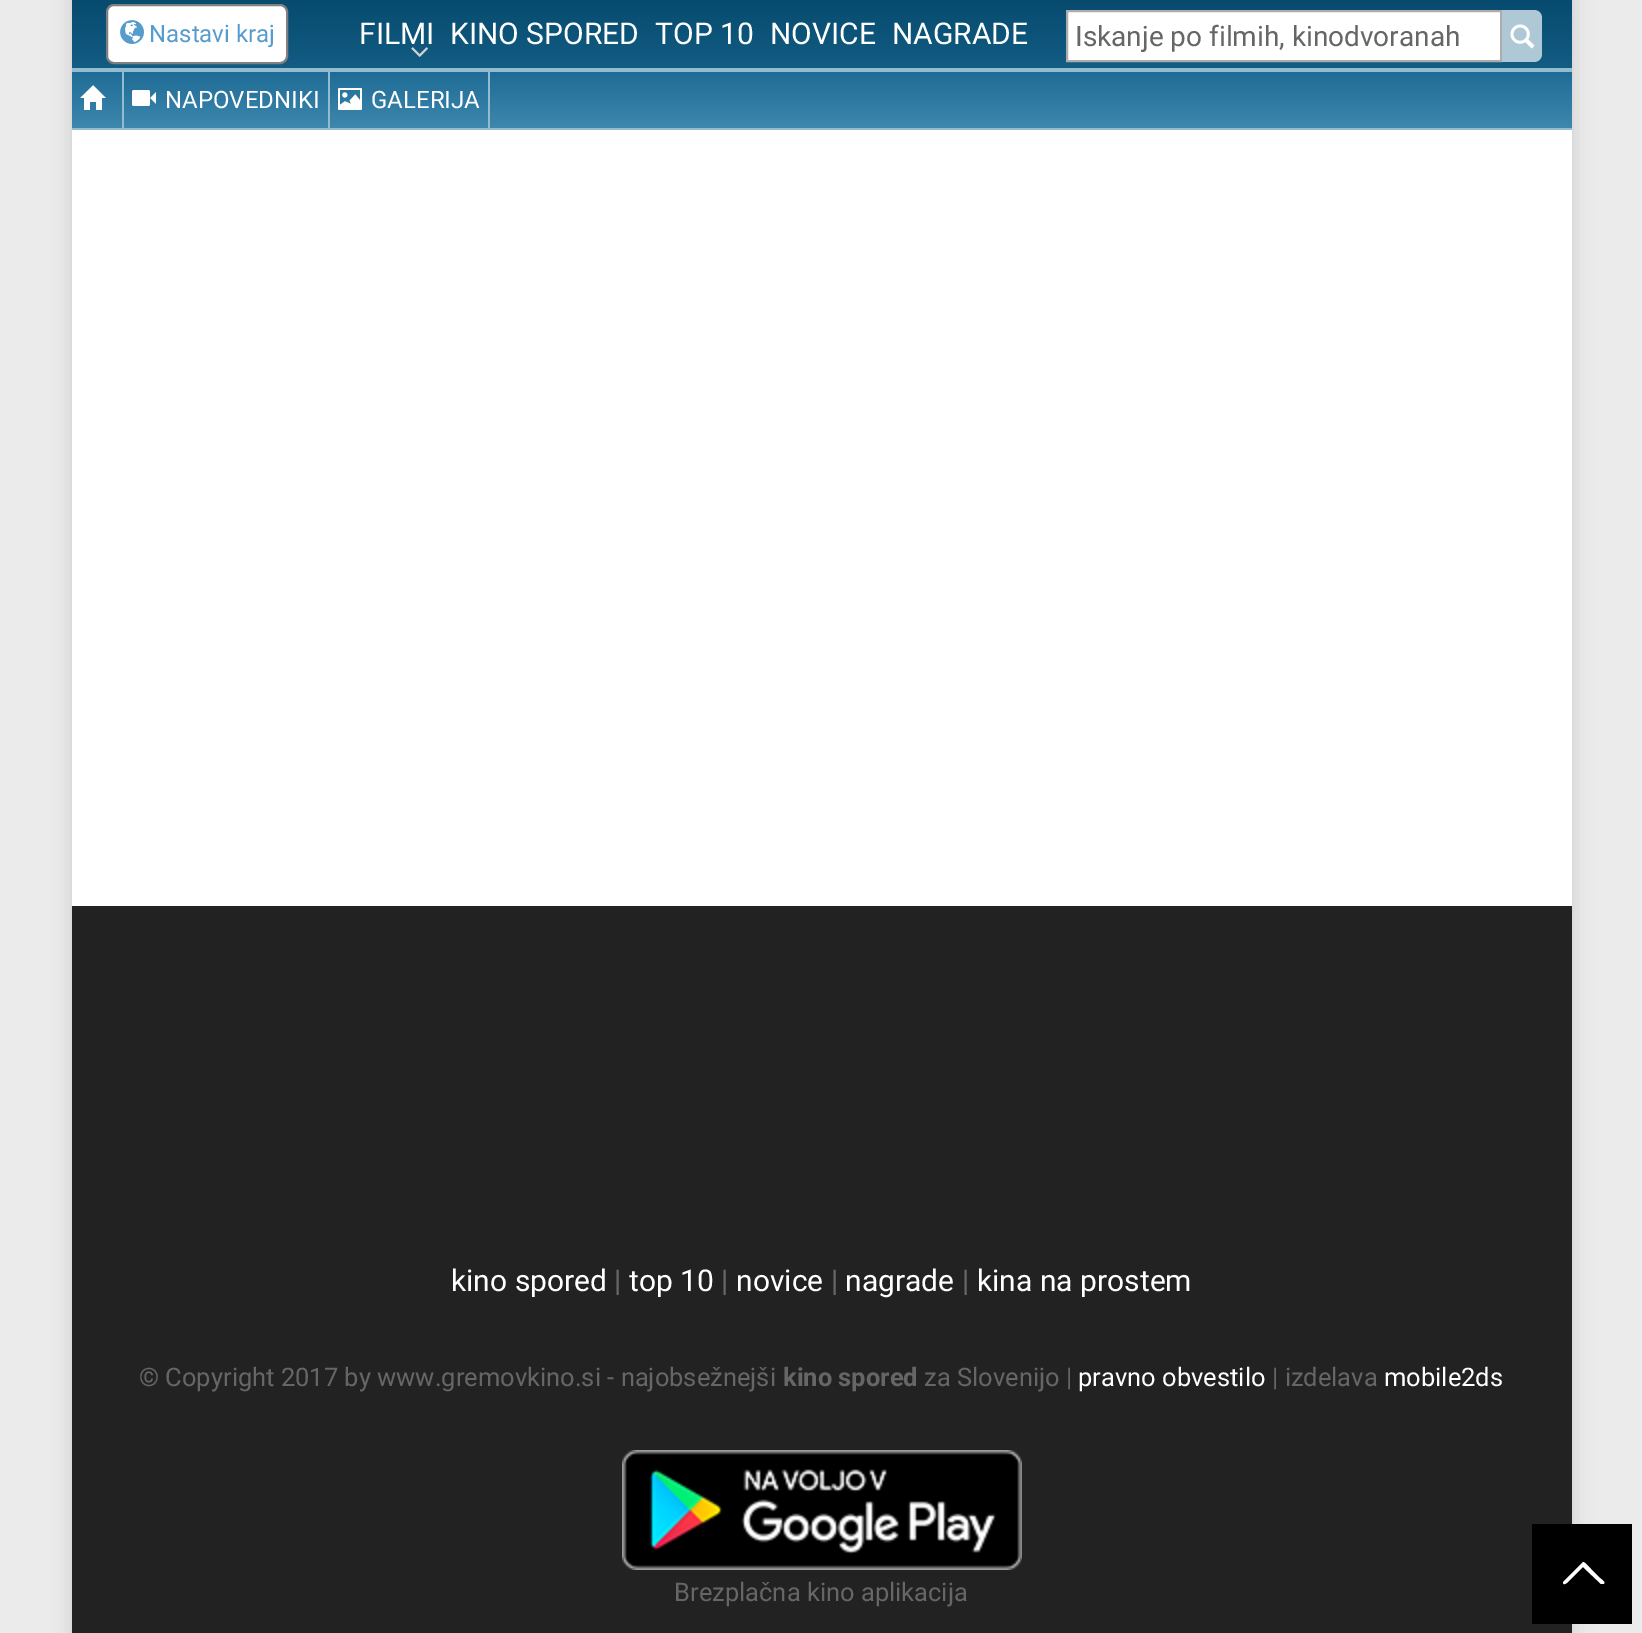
%!PS-Adobe-3.0
%%BoundingBox: 0 0 1642 1633
%%LanguageLevel: 3
%%Pages: 1
%%EndComments
%%BeginProlog
/setink { 3 { 255 div 3 1 roll } repeat setrgbcolor } def
/usefont { [ exch dup neg 0 0 3 -1 roll 0 0 ] selectfont } def
/drawtext { setink usefont moveto show } def
/fillbox { setink rectfill } def
/setalpha { dup .setfillconstantalpha .setstrokeconstantalpha } def
/rrect { 5 dict begin { /r /h /w /y /x } { exch def } forall
  x r add y moveto x w add y 2 copy h add r arct x w add y h add x 1 index r arct
  x y h add x y r arct x y 2 copy exch w add exch r arct closepath end } def
/softshadow { 12 dict begin { /a /b /q /h /w /y /x } { exch def } forall gsave /was 0 def
  9 -2 -9 { dup b mul 4 div /e exch def 1 sub .425 mul 2.718 exch exp 1 add a .99 .min exch div /now exch def
    1 1 now sub 1 was sub div sub setalpha /was now def
    w h .min e 2 mul add 0 gt { x e sub y e sub w e 2 mul add h e 2 mul add
      q e add b .6 mul add w h .min 2 div e add .min 0 .max rrect fill } if } for grestore end } def
/drawimage { 5 dict begin { /h /w /y /x /name } { exch def } forall
  gsave x y translate w h scale
  w h 8 [w 0 0 h 0 0] name (r) file false 3 colorimage grestore end } def
%%EndProlog
%%BeginSetup
<< /PageSize [1642 1633] /PageUsesTransparency true >> setpagedevice
%%EndSetup
%%Page: 1 1
0 .pushpdf14devicefilter
0 1633 translate 1 -1 scale
4 setmiterlimit
0 0 1642 1633 235 235 235 fillbox
202 202 202 setink
72 -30 1500 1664 0 10 1 softshadow
72 130 1500 776 255 255 255 fillbox
gsave 72 0 moveto 1572 0 lineto 1572 68 lineto 72 68 lineto closepath clip newpath
<< /ShadingType 2 /ColorSpace /DeviceRGB /Coords [822 0 822 128] /Extend [true true] /Function << /FunctionType 2 /Domain [0 1] /C0 [0.027 0.294 0.435] /C1 [0.114 0.42 0.584] /N 1 >> >> shfill grestore
72 128 1500 2 148 188 209 fillbox
255 255 255 setink
107 5 180 58 7 rrect gsave fill grestore
128 128 128 setink
2 setlinewidth
stroke
(assets/img1.rgb) 120 20 24 24 drawimage
(Nastavi kraj) 149 42 /Roboto-Regular 24 85 155 204 drawtext
(FILMI) 359 44 /Roboto-Regular 30 255 255 255 drawtext
(assets/img2.rgb) 411 47 17 10 drawimage
(KINO SPORED) 450 44 /Roboto-Regular 30 255 255 255 drawtext
(TOP 10) 655 44 /Roboto-Regular 30 255 255 255 drawtext
(NOVICE) 770 44 /Roboto-Regular 30 255 255 255 drawtext
(NAGRADE) 892 44 /Roboto-Regular 30 255 255 255 drawtext
1067 11 moveto 1501 11 lineto 1501 61 lineto 1067 61 lineto closepath gsave fill grestore
172 172 172 setink
stroke
(Iskanje po filmih, kinodvoranah) 1075 46 /Roboto-Regular 28 102 102 102 drawtext
174 200 214 setink
1502 10 moveto 1534 10 lineto 1538.5 10 1542 13.5 1542 18 curveto 1542 54 lineto 1542 58.5 1538.5 62 1534 62 curveto 1502 62 lineto closepath fill
(assets/img3.rgb) 1510 24 25 25 drawimage
72 68 1500 4 148 188 209 fillbox
gsave 72 72 moveto 1572 72 lineto 1572 128 lineto 72 128 lineto closepath clip newpath
<< /ShadingType 2 /ColorSpace /DeviceRGB /Coords [822 70 822 128] /Extend [true true] /Function << /FunctionType 2 /Domain [0 1] /C0 [0.114 0.42 0.584] /C1 [0.243 0.529 0.682] /N 1 >> >> shfill grestore
122 72 2 56 148 188 209 fillbox
(assets/img4.rgb) 80 85 26 25 drawimage
328 72 2 56 148 188 209 fillbox
(assets/img5.rgb) 132 90 24 16 drawimage
(NAPOVEDNIKI) 165 108 /Roboto-Regular 24 255 255 255 drawtext
488 72 2 56 148 188 209 fillbox
(assets/img6.rgb) 338 88 24 22 drawimage
(GALERIJA) 371 108 /Roboto-Regular 24 255 255 255 drawtext
72 906 1500 727 34 34 34 fillbox
(kino spored) 451 1291 /Roboto-Regular 30 255 255 255 drawtext
(|) 614 1291 /Roboto-Regular 30 102 102 102 drawtext
(top 10) 629 1291 /Roboto-Regular 30 255 255 255 drawtext
(|) 721 1291 /Roboto-Regular 30 102 102 102 drawtext
(novice) 736 1291 /Roboto-Regular 30 255 255 255 drawtext
(|) 831 1291 /Roboto-Regular 30 102 102 102 drawtext
(nagrade) 845 1291 /Roboto-Regular 30 255 255 255 drawtext
(|) 962 1291 /Roboto-Regular 30 102 102 102 drawtext
(kina na prostem) 977 1291 /Roboto-Regular 30 255 255 255 drawtext
(© Copyright 2017 by www.gremovkino.si - najobsežnejši) 139 1386 /Roboto-Regular 25.5 102 102 102 drawtext
(kino spored) 783 1386 /Roboto-Bold 25.5 102 102 102 drawtext
(za Slovenijo |) 924 1386 /Roboto-Regular 25.5 102 102 102 drawtext
(pravno obvestilo) 1078 1386 /Roboto-Regular 25.5 255 255 255 drawtext
(| izdelava) 1272 1386 /Roboto-Regular 25.5 102 102 102 drawtext
(mobile2ds) 1384 1386 /Roboto-Regular 25.5 255 255 255 drawtext
(assets/img7.rgb) 622 1450 400 120 drawimage
(Brezplačna kino aplikacija) 674 1601 /Roboto-Regular 25.5 102 102 102 drawtext
1532 1524 100 100 0 0 0 fillbox
255 255 255 setink
1601 1584 moveto 1583 1567 lineto 1569 1581 lineto 1568 1582 1564 1586 1563 1583 curveto 1563 1582 lineto 1583 1562 lineto 1585 1562 1590 1568 1591 1569 curveto 1600 1578 lineto 1601 1579 1607 1583 1603 1584 curveto closepath fill
.poppdf14devicefilter showpage
%%EOF
